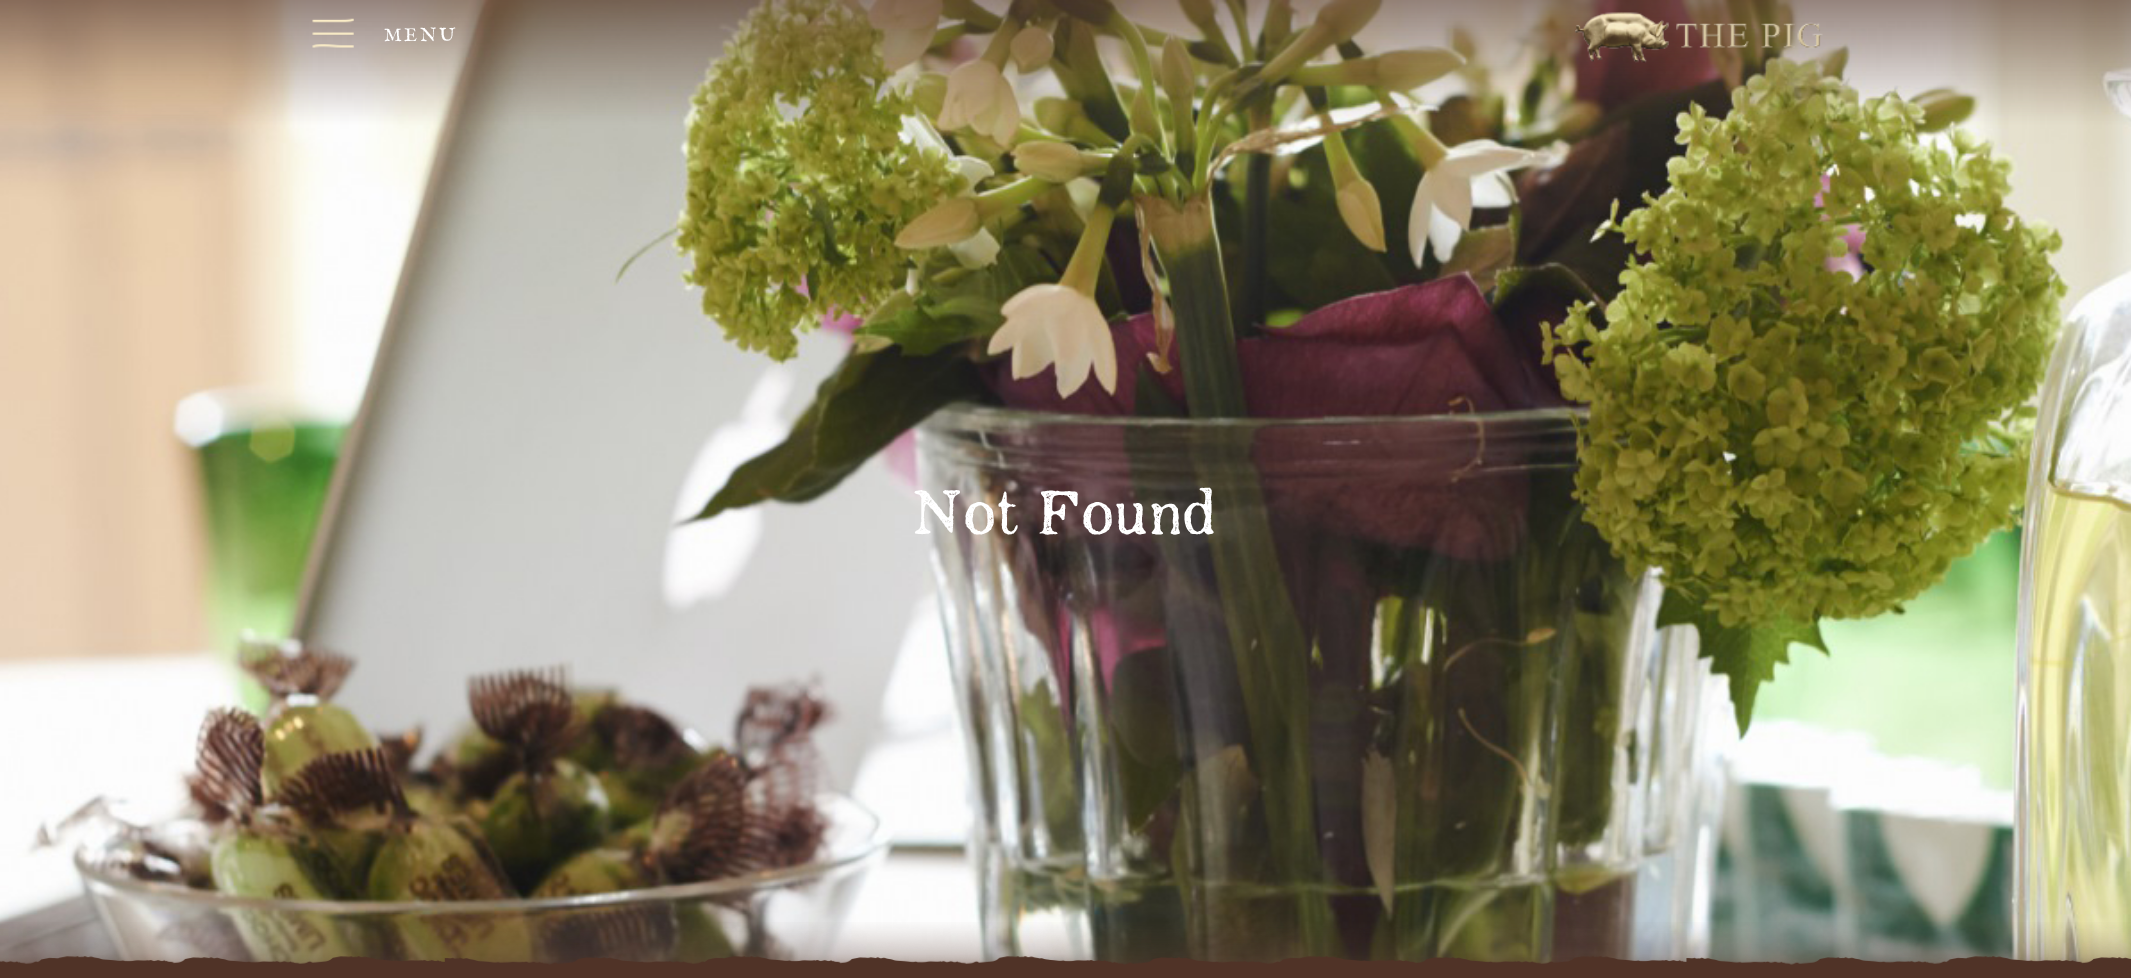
%!PS-Adobe-3.0
%%BoundingBox: 0 0 2131 978
%%LanguageLevel: 3
%%Pages: 1
%%EndComments
%%BeginProlog
/setink { 3 { 255 div 3 1 roll } repeat setrgbcolor } def
/usefont { [ exch dup neg 0 0 3 -1 roll 0 0 ] selectfont } def
/fillbox { setink rectfill } def
/drawimage { 5 dict begin { /h /w /y /x /name } { exch def } forall
  gsave x y translate w h scale
  w h 8 [w 0 0 h 0 0] name (r) file false 3 colorimage grestore end } def
%%EndProlog
%%BeginSetup
<< /PageSize [2131 978] >> setpagedevice
%%EndSetup
%%Page: 1 1
0 978 translate 1 -1 scale
4 setmiterlimit
0 0 2131 978 255 255 255 fillbox
(assets/img3.rgb) 0 0 2131 965 drawimage
(assets/img1.rgb) 312 18 42 30 drawimage
/IMFELLEnglish-Regular 19 usefont
384 41 moveto 2.5 0 (MENU) ashow
(assets/img2.rgb) 1575 12 248 51 drawimage
/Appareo-Medium 62.5 usefont
912 534 moveto -2 0 32 (Not Found) widthshow
(assets/img4.rgb) 0 922 2131 43 drawimage
(assets/img5.rgb) 0 956 2131 22 drawimage
showpage
%%EOF
